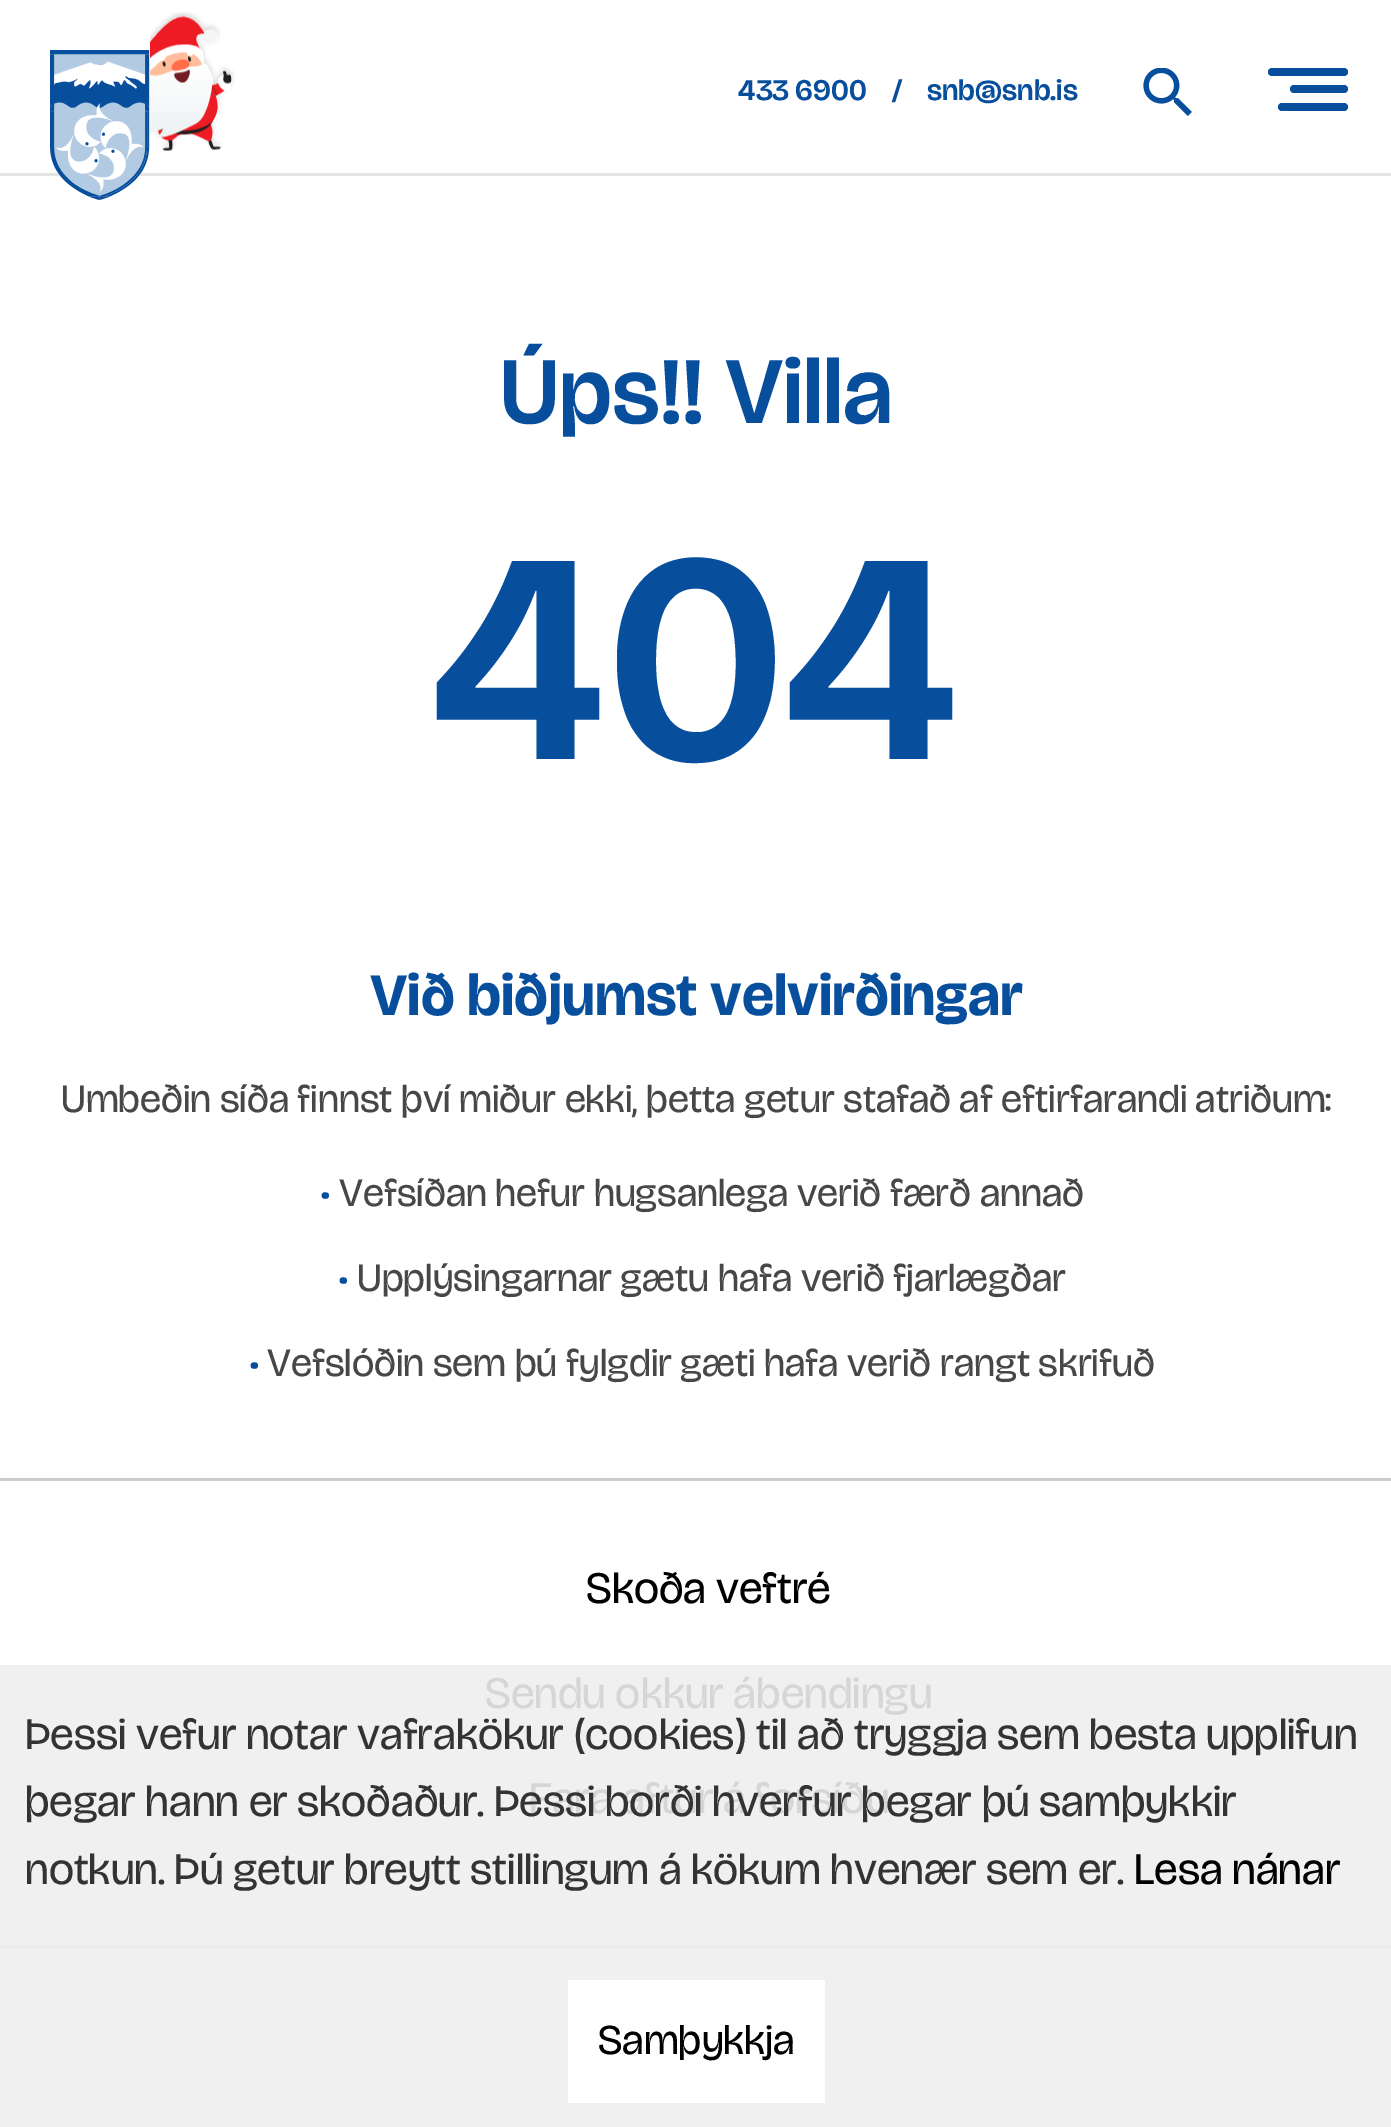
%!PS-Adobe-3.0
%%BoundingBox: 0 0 1391 2127
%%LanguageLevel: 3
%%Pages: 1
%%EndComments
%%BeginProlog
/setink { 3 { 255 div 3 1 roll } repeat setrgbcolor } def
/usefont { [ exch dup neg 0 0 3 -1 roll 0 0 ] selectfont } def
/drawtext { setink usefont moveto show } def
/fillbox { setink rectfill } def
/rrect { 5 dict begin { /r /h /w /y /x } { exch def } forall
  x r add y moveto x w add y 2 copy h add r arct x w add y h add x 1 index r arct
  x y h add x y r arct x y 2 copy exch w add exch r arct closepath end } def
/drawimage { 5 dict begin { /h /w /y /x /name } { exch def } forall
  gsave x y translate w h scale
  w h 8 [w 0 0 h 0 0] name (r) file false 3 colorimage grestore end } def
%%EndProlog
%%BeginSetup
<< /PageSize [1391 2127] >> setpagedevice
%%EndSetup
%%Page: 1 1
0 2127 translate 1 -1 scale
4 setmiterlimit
0 0 1391 2127 255 255 255 fillbox
0 1665 1391 462 240 240 240 fillbox
0 173 1391 3 228 228 228 fillbox
(assets/img1.rgb) 50 50 100 150 drawimage
(assets/img2.rgb) 150 12 85 139 drawimage
(433 6900) 738 100 /BricolageGrotesque-SemiBold 30 7 78 157 drawtext
(/) 892 100 /BricolageGrotesque-SemiBold 30 7 78 157 drawtext
(snb@snb.is) 927 100 /BricolageGrotesque-SemiBold 30 7 78 157 drawtext
(assets/img3.rgb) 1143 68 49 48 drawimage
1268 68 80 8 4 rrect fill
1290 85 58 8 4 rrect fill
1278 103 70 8 4 rrect fill
(Úps!! Villa) 500 423 /BricolageGrotesque-SemiBold 95 7 78 157 drawtext
(404) 432 759 /BricolageGrotesque-SemiBold 300 7 78 157 drawtext
(Við biðjumst velvirðingar) 370 1015 /BricolageGrotesque-Bold 60 7 78 157 drawtext
(Umbeðin síða finnst því miður ekki, þetta getur stafað af eftirfarandi atriðum:) 61 1112 /BricolageGrotesque-Regular 40 71 71 71 drawtext
(•) 321 1206 /BricolageGrotesque-Regular 40 7 78 157 drawtext
(Vefsíðan hefur hugsanlega verið færð annað) 339 1206 /BricolageGrotesque-Regular 40 71 71 71 drawtext
(•) 339 1291 /BricolageGrotesque-Regular 40 7 78 157 drawtext
(Upplýsingarnar gætu hafa verið fjarlægðar) 357 1291 /BricolageGrotesque-Regular 40 71 71 71 drawtext
(•) 250 1376 /BricolageGrotesque-Regular 40 7 78 157 drawtext
(Vefslóðin sem þú fylgdir gæti hafa verið rangt skrifuð) 267 1376 /BricolageGrotesque-Regular 40 71 71 71 drawtext
0 1478 1391 3 204 204 204 fillbox
0 1945 1391 3 235 235 235 fillbox
(Skoða veftré) 586 1603 /BricolageGrotesque-Regular 45 0 0 0 drawtext
(Sendu okkur ábendingu) 485 1708 /BricolageGrotesque-Regular 45 214 214 214 drawtext
(Fara aftur á forsíðu) 529 1813 /BricolageGrotesque-Regular 45 214 214 214 drawtext
(Þessi vefur notar vafrakökur \(cookies\) til að tryggja sem besta upplifun) 25 1749 /BricolageGrotesque-Regular 45 51 51 51 drawtext
(þegar hann er skoðaður. Þessi borði hverfur þegar þú samþykkir) 25 1816 /BricolageGrotesque-Regular 45 51 51 51 drawtext
(notkun. Þú getur breytt stillingum á kökum hvenær sem er.) 25 1884 /BricolageGrotesque-Regular 45 51 51 51 drawtext
(Lesa nánar) 1134 1884 /BricolageGrotesque-Regular 45 0 0 0 drawtext
568 1980 257 123 255 255 255 fillbox
(Samþykkja) 598 2054 /BricolageGrotesque-Regular 42.5 0 0 0 drawtext
showpage
%%EOF
